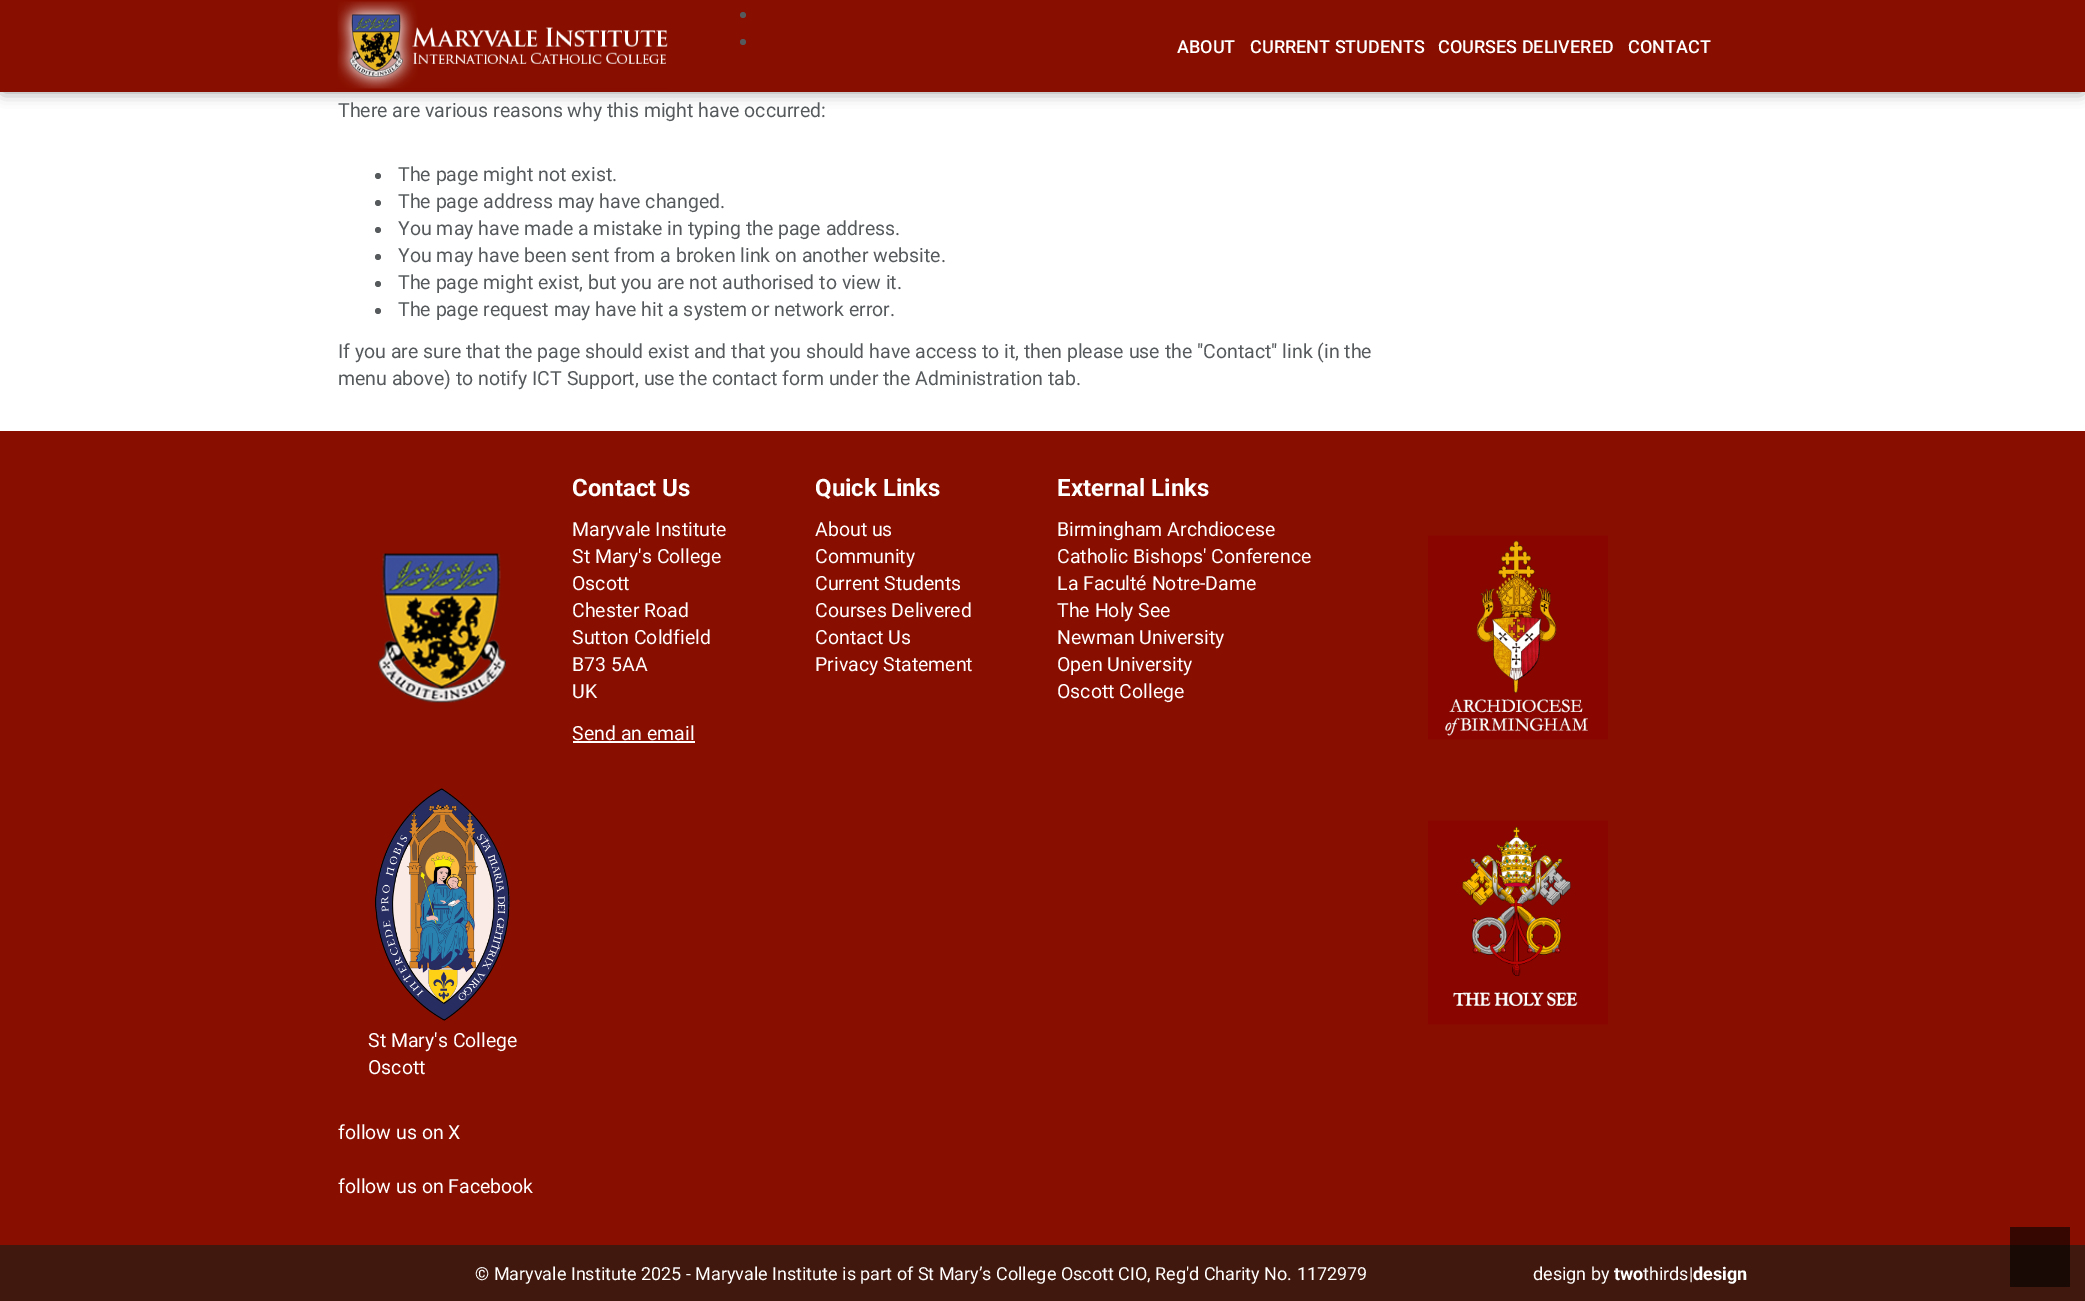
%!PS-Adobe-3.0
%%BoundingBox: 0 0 2085 1301
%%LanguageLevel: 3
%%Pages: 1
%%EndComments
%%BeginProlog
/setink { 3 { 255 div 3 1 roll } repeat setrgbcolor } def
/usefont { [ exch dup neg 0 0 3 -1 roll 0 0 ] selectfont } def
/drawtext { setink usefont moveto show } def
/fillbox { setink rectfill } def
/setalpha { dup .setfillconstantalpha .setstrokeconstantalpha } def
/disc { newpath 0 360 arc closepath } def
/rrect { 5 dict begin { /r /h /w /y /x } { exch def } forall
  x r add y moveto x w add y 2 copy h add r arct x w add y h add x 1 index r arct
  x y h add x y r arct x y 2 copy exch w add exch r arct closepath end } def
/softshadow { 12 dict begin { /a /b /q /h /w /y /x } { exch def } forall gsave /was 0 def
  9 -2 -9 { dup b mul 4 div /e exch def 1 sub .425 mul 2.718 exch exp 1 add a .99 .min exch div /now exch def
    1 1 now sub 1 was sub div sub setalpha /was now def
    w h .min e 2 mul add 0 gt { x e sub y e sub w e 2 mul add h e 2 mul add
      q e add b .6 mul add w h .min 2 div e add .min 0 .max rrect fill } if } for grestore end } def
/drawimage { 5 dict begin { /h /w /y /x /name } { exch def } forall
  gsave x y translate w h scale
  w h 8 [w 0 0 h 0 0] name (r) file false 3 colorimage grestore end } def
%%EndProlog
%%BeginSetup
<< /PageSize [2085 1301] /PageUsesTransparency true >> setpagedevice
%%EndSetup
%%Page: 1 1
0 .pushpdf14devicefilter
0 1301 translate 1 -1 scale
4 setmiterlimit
0 0 2085 1301 255 255 255 fillbox
0 0 0 setink
3 6 2079 86 0 7.5 0.41 softshadow
0 0 2085 92 136 14 0 fillbox
(assets/img1.rgb) 337 1 331 88 drawimage
86 90 92 setink
743 15 3 disc fill
743 42 3 disc fill
(ABOUT) 1177 53 /Roboto-Medium 18 255 255 255 drawtext
(CURRENT STUDENTS) 1250 53 /Roboto-Medium 18 255 255 255 drawtext
(COURSES DELIVERED) 1438 53 /Roboto-Medium 18 255 255 255 drawtext
(CONTACT) 1628 53 /Roboto-Medium 18 255 255 255 drawtext
(There are various reasons why this might have occurred:) 338 117 /Roboto-Regular 19.5 86 90 92 drawtext
378 176 3 disc fill
(The page might not exist.) 398 181 /Roboto-Regular 19.5 86 90 92 drawtext
378 203 3 disc fill
(The page address may have changed.) 398 208 /Roboto-Regular 19.5 86 90 92 drawtext
378 230 3 disc fill
(You may have made a mistake in typing the page address.) 398 235 /Roboto-Regular 19.5 86 90 92 drawtext
378 257 3 disc fill
(You may have been sent from a broken link on another website.) 398 262 /Roboto-Regular 19.5 86 90 92 drawtext
378 284 3 disc fill
(The page might exist, but you are not authorised to view it.) 398 289 /Roboto-Regular 19.5 86 90 92 drawtext
378 311 3 disc fill
(The page request may have hit a system or network error.) 398 316 /Roboto-Regular 19.5 86 90 92 drawtext
(If you are sure that the page should exist and that you should have access to it, then please use the "Contact" link \(in the) 338 358 /Roboto-Regular 19.5 86 90 92 drawtext
(menu above\) to notify ICT Support, use the contact form under the Administration tab.) 338 385 /Roboto-Regular 19.5 86 90 92 drawtext
0 431 2085 814 136 14 0 fillbox
2010 1227 60 18 54 6 0 fillbox
(Contact Us) 572 496 /Roboto-Bold 24 255 255 255 drawtext
(Maryvale Institute) 572 536 /Roboto-Regular 19.5 255 255 255 drawtext
(St Mary's College) 572 563 /Roboto-Regular 19.5 255 255 255 drawtext
(Oscott) 572 590 /Roboto-Regular 19.5 255 255 255 drawtext
(Chester Road) 572 617 /Roboto-Regular 19.5 255 255 255 drawtext
(Sutton Coldfield) 572 644 /Roboto-Regular 19.5 255 255 255 drawtext
(B73 5AA) 572 671 /Roboto-Regular 19.5 255 255 255 drawtext
(UK) 572 698 /Roboto-Regular 19.5 255 255 255 drawtext
(Send an email) 572 740 /Roboto-Regular 19.5 255 255 255 drawtext
573 741 122 2 255 255 255 fillbox
(Quick Links) 815 496 /Roboto-Bold 24 255 255 255 drawtext
(About us) 815 536 /Roboto-Regular 19.5 255 255 255 drawtext
(Community) 815 563 /Roboto-Regular 19.5 255 255 255 drawtext
(Current Students) 815 590 /Roboto-Regular 19.5 255 255 255 drawtext
(Courses Delivered) 815 617 /Roboto-Regular 19.5 255 255 255 drawtext
(Contact Us) 815 644 /Roboto-Regular 19.5 255 255 255 drawtext
(Privacy Statement) 815 671 /Roboto-Regular 19.5 255 255 255 drawtext
(External Links) 1057 496 /Roboto-Bold 24 255 255 255 drawtext
(Birmingham Archdiocese) 1057 536 /Roboto-Regular 19.5 255 255 255 drawtext
(Catholic Bishops' Conference) 1057 563 /Roboto-Regular 19.5 255 255 255 drawtext
(La Faculté Notre-Dame) 1057 590 /Roboto-Regular 19.5 255 255 255 drawtext
(The Holy See) 1057 617 /Roboto-Regular 19.5 255 255 255 drawtext
(Newman University) 1057 644 /Roboto-Regular 19.5 255 255 255 drawtext
(Open University) 1057 671 /Roboto-Regular 19.5 255 255 255 drawtext
(Oscott College) 1057 698 /Roboto-Regular 19.5 255 255 255 drawtext
(assets/img2.rgb) 1428 535 180 205 drawimage
(assets/img3.rgb) 1428 820 180 205 drawimage
(assets/img4.rgb) 378 553 128 150 drawimage
(assets/img5.rgb) 374 788 136 233 drawimage
(St Mary's College) 368 1047 /Roboto-Regular 19.5 255 255 255 drawtext
(Oscott) 368 1074 /Roboto-Regular 19.5 255 255 255 drawtext
(follow us on X) 338 1139 /Roboto-Regular 19.5 255 255 255 drawtext
(follow us on Facebook) 338 1193 /Roboto-Regular 19.5 255 255 255 drawtext
0 1245 2085 56 65 24 13 fillbox
2010 1245 60 42 26 10 5 fillbox
(© Maryvale Institute 2025 - Maryvale Institute is part of St Mary’s College Oscott CIO, Reg'd Charity No. 1172979) 475 1280 /Roboto-Regular 18 255 255 255 drawtext
(design by) 1533 1280 /Roboto-Regular 18 255 255 255 drawtext
(two) 1614 1280 /Roboto-Bold 18 255 255 255 drawtext
(thirds|) 1643 1280 /Roboto-Regular 18 255 255 255 drawtext
(design) 1693 1280 /Roboto-Bold 18 255 255 255 drawtext
.poppdf14devicefilter showpage
%%EOF
